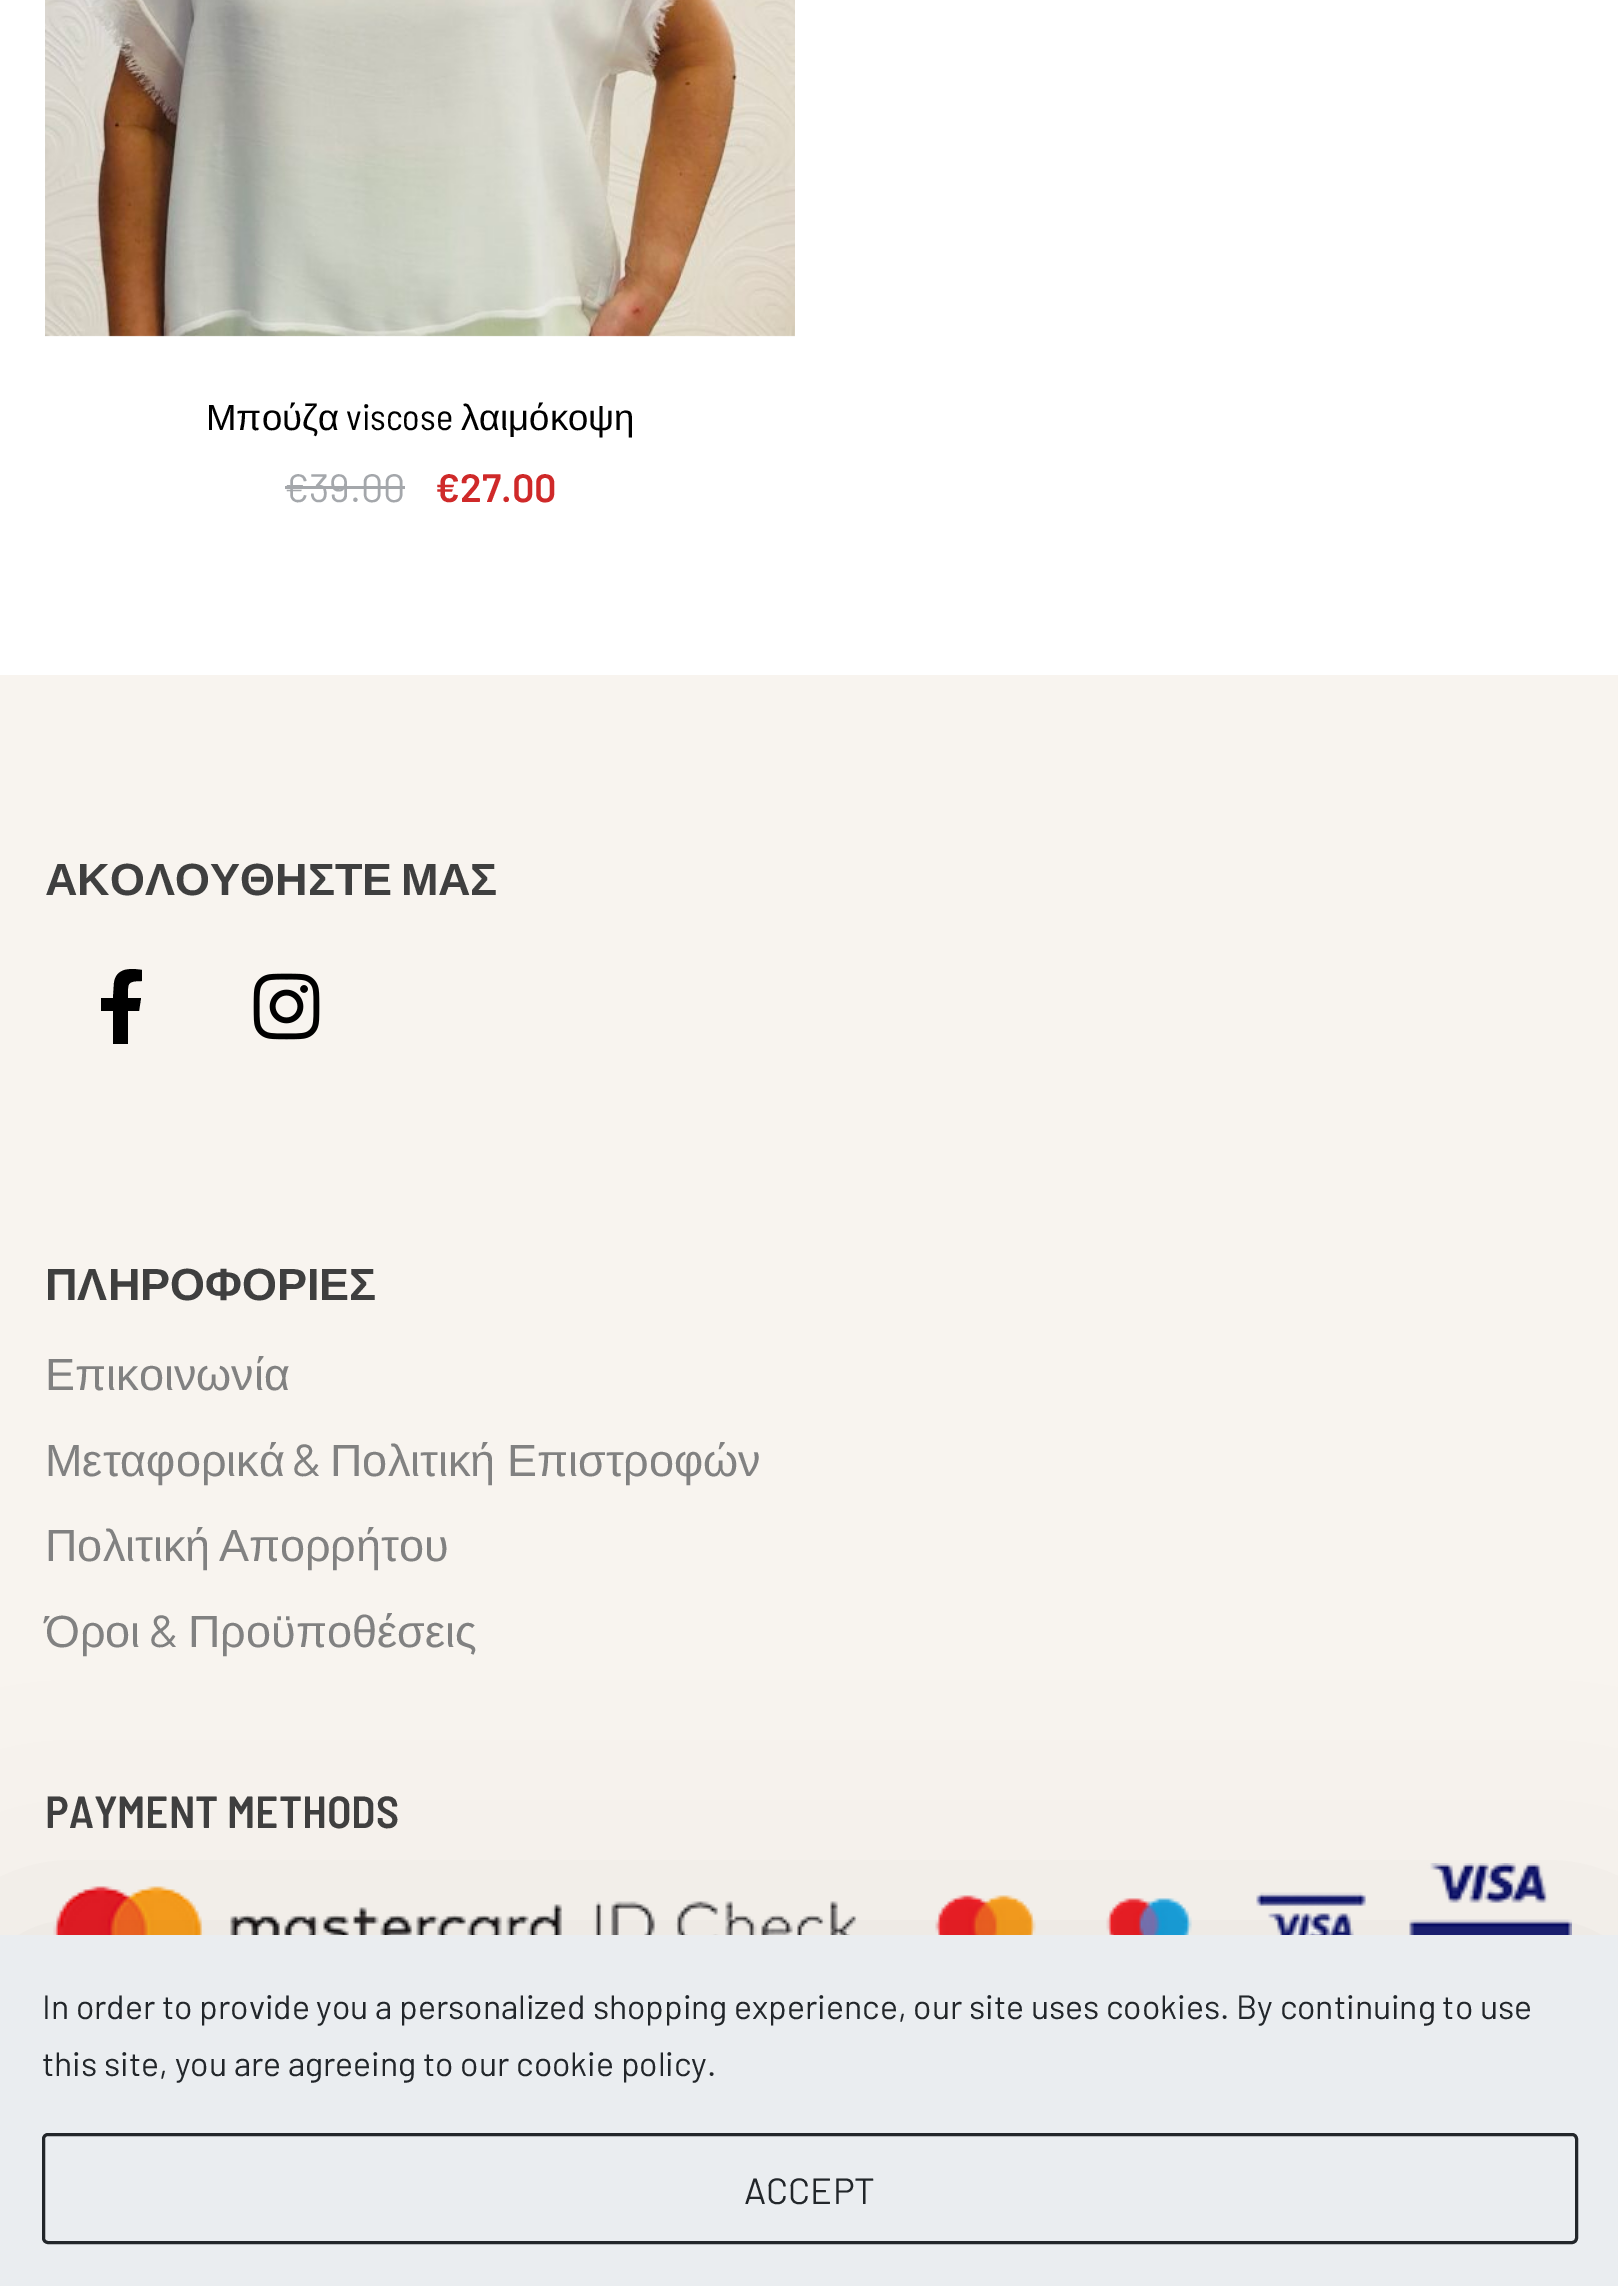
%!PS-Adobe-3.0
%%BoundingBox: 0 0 1618 2286
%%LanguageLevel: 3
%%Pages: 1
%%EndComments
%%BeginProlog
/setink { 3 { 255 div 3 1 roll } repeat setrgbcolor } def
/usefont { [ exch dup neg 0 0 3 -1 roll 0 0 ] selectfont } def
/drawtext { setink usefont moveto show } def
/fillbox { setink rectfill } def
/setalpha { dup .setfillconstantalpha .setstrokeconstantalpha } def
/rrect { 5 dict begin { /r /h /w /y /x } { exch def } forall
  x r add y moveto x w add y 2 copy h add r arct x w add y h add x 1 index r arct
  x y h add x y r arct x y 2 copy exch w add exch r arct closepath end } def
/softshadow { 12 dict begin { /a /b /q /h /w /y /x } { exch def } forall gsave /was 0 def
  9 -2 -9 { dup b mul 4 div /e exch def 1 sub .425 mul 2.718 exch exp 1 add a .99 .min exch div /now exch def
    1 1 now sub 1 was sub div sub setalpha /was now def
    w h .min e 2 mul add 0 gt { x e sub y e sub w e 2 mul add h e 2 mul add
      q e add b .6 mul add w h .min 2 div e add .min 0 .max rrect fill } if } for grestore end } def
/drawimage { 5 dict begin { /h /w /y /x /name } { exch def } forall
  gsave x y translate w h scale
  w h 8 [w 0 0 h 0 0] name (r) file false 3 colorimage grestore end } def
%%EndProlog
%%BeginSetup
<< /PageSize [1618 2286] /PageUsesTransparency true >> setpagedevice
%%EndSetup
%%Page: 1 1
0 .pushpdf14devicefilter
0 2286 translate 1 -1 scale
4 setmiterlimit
0 0 1618 2286 255 255 255 fillbox
(assets/img1.rgb) 45 0 750 337 drawimage
(Μπούζα) 206 430 /LiberationSans-Regular 36.5 0 0 0 drawtext
(viscose) 346 430 /BarlowSemiCondensed-Regular 36.5 0 0 0 drawtext
(λαιμόκοψη) 461 430 /LiberationSans-Regular 36.5 0 0 0 drawtext
(€39.00) 284 502 /Barlow-Regular 39.5 164 167 171 drawtext
285 486 120 3 164 167 171 fillbox
(€27.00) 435 502 /Barlow-SemiBold 39.5 207 41 41 drawtext
0 675 1618 1260 248 244 239 fillbox
/LiberationSans-Bold 45 usefont
63 63 63 setink
45 895 moveto -4 0 32 (ΑΚΟΛΟΥΘΗΣΤΕ ΜΑΣ) widthshow
0 0 0 setink
139 1011 moveto 141 998 lineto 128 998 lineto 128 984 126 981 142 981 curveto 142 970 lineto 130 968 116 968 114 983 curveto 113 998 lineto 101 998 lineto 101 1011 lineto 113 1011 lineto 113 1044 lineto 128 1044 lineto 128 1011 lineto closepath fill
(assets/img2.rgb) 253 973 67 67 drawimage
(ΠΛΗΡΟΦΟΡΙΕΣ) 45 1300 /LiberationSans-Bold 45 63 63 63 drawtext
(Επικοινωνία) 45 1390 /LiberationSans-Regular 45 129 129 129 drawtext
(Μεταφορικά) 45 1476 /LiberationSans-Regular 45 129 129 129 drawtext
(&) 292 1476 /Barlow-Regular 45 129 129 129 drawtext
/LiberationSans-Regular 45 usefont
330 1476 moveto -1 0 32 (Πολιτική Επιστροφών) widthshow
45 1561 moveto -4 0 32 (Πολιτική Απορρήτου) widthshow
(Όροι) 45 1647 /LiberationSans-Regular 45 129 129 129 drawtext
(&) 149 1647 /Barlow-Regular 45 129 129 129 drawtext
(Προϋποθέσεις) 188 1647 /LiberationSans-Regular 45 129 129 129 drawtext
(PAYMENT METHODS) 45 1828 /BarlowSemiCondensed-SemiBold 45 63 63 63 drawtext
(assets/img3.rgb) 53 1863 1519 72 drawimage
0 0 0 setink
0 1950 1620 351 0 120 0.07 softshadow
0 1935 1618 351 234 237 240 fillbox
(In order to provide you a personalized shopping experience, our site uses cookies. By continuing to use) 42 2019 /Barlow-Regular 33.75 34 38 42 drawtext
(this site, you are agreeing to our cookie policy.) 42 2076 /Barlow-Regular 33.75 34 38 42 drawtext
3 setlinewidth
43.5 2134.5 1533 108 4.5 rrect stroke
(ACCEPT) 744 2204 /Barlow-Regular 36.5 34 38 42 drawtext
.poppdf14devicefilter showpage
%%EOF
